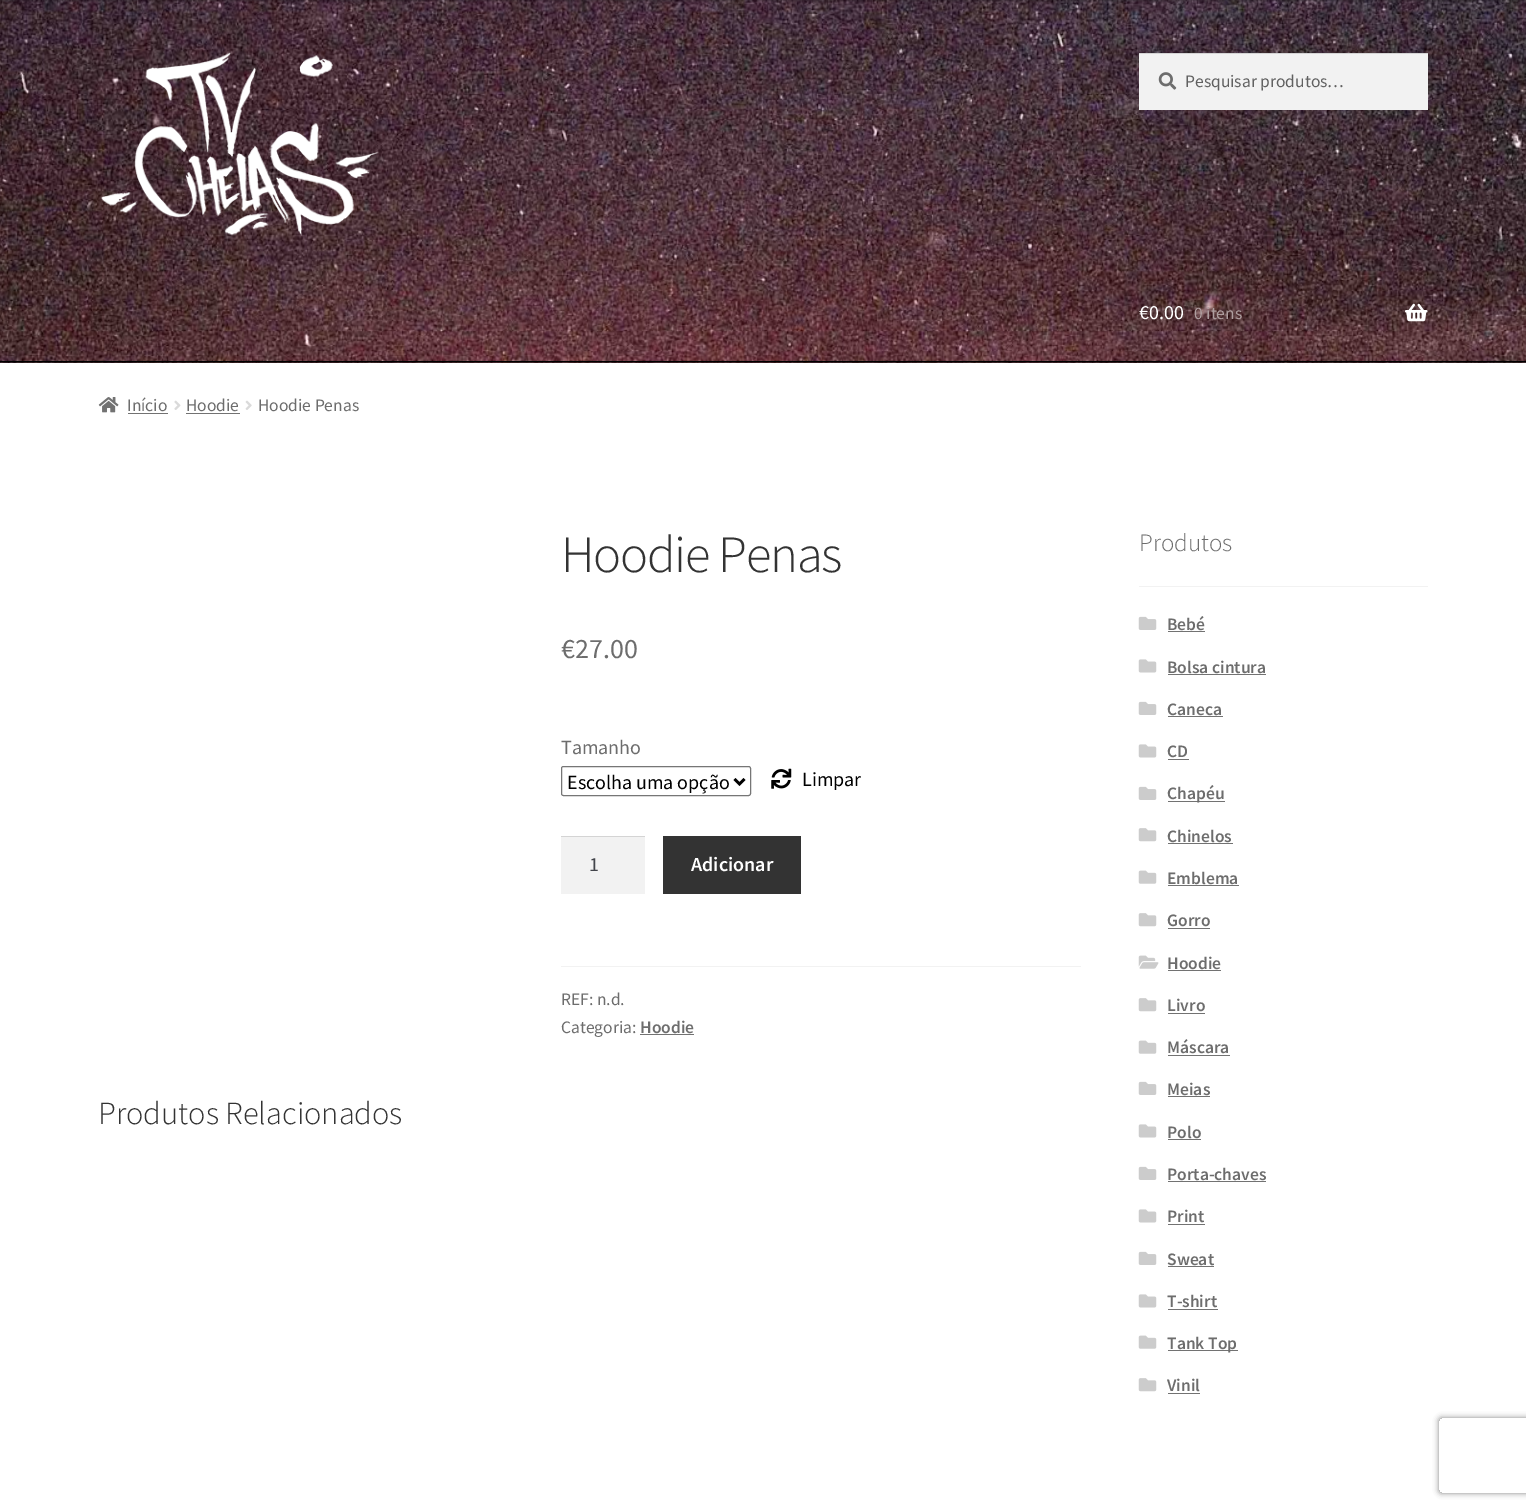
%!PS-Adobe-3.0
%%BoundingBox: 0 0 1526 1509
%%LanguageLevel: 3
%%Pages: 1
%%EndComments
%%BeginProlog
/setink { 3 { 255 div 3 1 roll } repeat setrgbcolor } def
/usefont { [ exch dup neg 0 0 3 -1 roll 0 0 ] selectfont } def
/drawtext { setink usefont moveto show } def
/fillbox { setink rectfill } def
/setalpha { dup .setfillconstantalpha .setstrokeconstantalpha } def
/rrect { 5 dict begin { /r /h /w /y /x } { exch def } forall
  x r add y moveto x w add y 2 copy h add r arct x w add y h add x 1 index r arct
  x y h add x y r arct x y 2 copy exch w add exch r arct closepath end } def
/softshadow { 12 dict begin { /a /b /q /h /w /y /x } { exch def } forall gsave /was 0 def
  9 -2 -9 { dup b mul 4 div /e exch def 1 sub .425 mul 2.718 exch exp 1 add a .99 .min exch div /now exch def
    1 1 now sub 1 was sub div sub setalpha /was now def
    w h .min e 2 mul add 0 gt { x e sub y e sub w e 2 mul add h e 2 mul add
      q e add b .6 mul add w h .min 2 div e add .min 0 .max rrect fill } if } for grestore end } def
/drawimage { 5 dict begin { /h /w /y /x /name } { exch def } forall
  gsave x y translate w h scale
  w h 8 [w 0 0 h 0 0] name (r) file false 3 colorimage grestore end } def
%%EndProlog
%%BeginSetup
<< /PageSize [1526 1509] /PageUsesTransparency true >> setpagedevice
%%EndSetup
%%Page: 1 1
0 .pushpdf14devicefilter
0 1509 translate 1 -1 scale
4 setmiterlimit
0 0 1526 1509 255 255 255 fillbox
0 362 1526 1 0 0 0 fillbox
(assets/img1.rgb) 0 0 1526 363 drawimage
0 -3 1526 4 0 1 0.2 softshadow
0 361 1526 1 0 0 0 fillbox
(assets/img2.rgb) 101 52 278 184 drawimage
1139 54 289 56 242 242 242 fillbox
(assets/img3.rgb) 1158 72 19 18 drawimage
1139 53 289 1 212 212 212 fillbox
(Pesquisar produtos…) 1185 87 /SourceSansPro-Regular 17.5 97 97 97 drawtext
(€0.00) 1139 319 /SourceSansPro-Regular 20 255 255 255 drawtext
(0 itens) 1194 319 /SourceSansPro-Regular 17.5 174 158 159 drawtext
(assets/img4.rgb) 1405 303 23 19 drawimage
(assets/img5.rgb) 98 397 21 16 drawimage
(Início) 127 411 /SourceSansPro-Regular 17.5 109 109 109 drawtext
128 413 40 1 114 114 114 fillbox
(assets/img6.rgb) 174 400 7 10 drawimage
(Hoodie) 186 411 /SourceSansPro-Regular 17.5 109 109 109 drawtext
186 413 54 1 114 114 114 fillbox
(assets/img7.rgb) 245 400 7 10 drawimage
(Hoodie Penas) 258 411 /SourceSansPro-Regular 17.5 109 109 109 drawtext
/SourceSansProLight-Light 52.5 usefont
51 51 51 setink
561 572 moveto -1.25 0 (Hoodie Penas) ashow
(€27.00) 561 658 /SourceSansPro-Regular 28 109 109 109 drawtext
(Tamanho) 561 754 /SourceSansPro-Regular 20 109 109 109 drawtext
118 118 118 setink
561.5 766.5 189 29 2 rrect stroke
0 0 0 setink
2.5 setlinewidth
734.5 779 moveto 739.5 784 lineto 744.5 779 lineto stroke
(Escolha uma opção) 567 789 /SourceSansPro-Regular 20 0 0 0 drawtext
(assets/img8.rgb) 771 768 21 21 drawimage
(Limpar) 802 786 /SourceSansPro-Regular 20 0 0 0 drawtext
561 837 84 57 242 242 242 fillbox
561 836 84 1 212 212 212 fillbox
(1) 589 871 /SourceSansPro-Regular 20 67 69 75 drawtext
663 836 138 58 51 51 51 fillbox
(Adicionar) 691 871 /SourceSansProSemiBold-SemiBold 20 255 255 255 drawtext
561 966 520 1 242 242 242 fillbox
(REF: n.d.) 561 1005 /SourceSansPro-Regular 17.5 109 109 109 drawtext
(Categoria:) 561 1033 /SourceSansPro-Regular 17.5 109 109 109 drawtext
(Hoodie) 640 1033 /SourceSansProSemiBold-SemiBold 17.5 109 109 109 drawtext
640 1034 54 1 114 114 114 fillbox
(Produtos Relacionados) 98 1124 /SourceSansProLight-Light 32.4 51 51 51 drawtext
1139 586 289 1 242 242 242 fillbox
(Produtos) 1139 551 /SourceSansProLight-Light 25 109 109 109 drawtext
(assets/img9.rgb) 1138 616 19 14 drawimage
(Bebé) 1167 630 /SourceSansProSemiBold-SemiBold 17.5 109 109 109 drawtext
1168 631 37 1 114 114 114 fillbox
(assets/img10.rgb) 1138 659 19 14 drawimage
(Bolsa cintura) 1167 673 /SourceSansProSemiBold-SemiBold 17.5 109 109 109 drawtext
1168 674 98 1 114 114 114 fillbox
(assets/img9.rgb) 1138 701 19 14 drawimage
(Caneca) 1167 715 /SourceSansProSemiBold-SemiBold 17.5 109 109 109 drawtext
1168 716 55 1 114 114 114 fillbox
(assets/img10.rgb) 1138 744 19 14 drawimage
(CD) 1167 757 /SourceSansProSemiBold-SemiBold 17.5 109 109 109 drawtext
1168 759 21 1 114 114 114 fillbox
(assets/img9.rgb) 1138 786 19 14 drawimage
1168 801 57 1 114 114 114 fillbox
(Chapéu) 1167 799 /SourceSansProSemiBold-SemiBold 17.5 109 109 109 drawtext
(assets/img11.rgb) 1138 828 19 14 drawimage
(Chinelos) 1167 842 /SourceSansProSemiBold-SemiBold 17.5 109 109 109 drawtext
1168 843 65 1 114 114 114 fillbox
(assets/img12.rgb) 1138 870 19 14 drawimage
(Emblema) 1167 884 /SourceSansProSemiBold-SemiBold 17.5 109 109 109 drawtext
1168 885 71 1 114 114 114 fillbox
(assets/img11.rgb) 1138 913 19 14 drawimage
(Gorro) 1167 926 /SourceSansProSemiBold-SemiBold 17.5 109 109 109 drawtext
1168 928 42 1 114 114 114 fillbox
(assets/img13.rgb) 1138 955 21 14 drawimage
(Hoodie) 1167 969 /SourceSansProSemiBold-SemiBold 17.5 109 109 109 drawtext
1168 970 53 1 114 114 114 fillbox
(assets/img11.rgb) 1138 998 19 14 drawimage
(Livro) 1167 1011 /SourceSansProSemiBold-SemiBold 17.5 109 109 109 drawtext
1168 1013 37 1 114 114 114 fillbox
(assets/img12.rgb) 1138 1040 19 14 drawimage
(Máscara) 1167 1053 /SourceSansProSemiBold-SemiBold 17.5 109 109 109 drawtext
1168 1055 62 1 114 114 114 fillbox
(assets/img9.rgb) 1138 1081 19 14 drawimage
(Meias) 1167 1095 /SourceSansProSemiBold-SemiBold 17.5 109 109 109 drawtext
1168 1096 42 1 114 114 114 fillbox
(assets/img10.rgb) 1138 1124 19 14 drawimage
(Polo) 1167 1138 /SourceSansProSemiBold-SemiBold 17.5 109 109 109 drawtext
1168 1139 33 1 114 114 114 fillbox
(assets/img9.rgb) 1138 1166 19 14 drawimage
(Porta-chaves) 1167 1180 /SourceSansProSemiBold-SemiBold 17.5 109 109 109 drawtext
1168 1181 98 1 114 114 114 fillbox
(assets/img10.rgb) 1138 1209 19 14 drawimage
(Print) 1167 1222 /SourceSansProSemiBold-SemiBold 17.5 109 109 109 drawtext
1168 1224 37 1 114 114 114 fillbox
(assets/img9.rgb) 1138 1251 19 14 drawimage
(Sweat) 1167 1265 /SourceSansProSemiBold-SemiBold 17.5 109 109 109 drawtext
1168 1266 46 1 114 114 114 fillbox
(assets/img10.rgb) 1138 1294 19 14 drawimage
(T-shirt) 1167 1307 /SourceSansProSemiBold-SemiBold 17.5 109 109 109 drawtext
1168 1309 50 1 114 114 114 fillbox
(assets/img12.rgb) 1138 1335 19 14 drawimage
1168 1350 70 1 114 114 114 fillbox
(Tank Top) 1167 1349 /SourceSansProSemiBold-SemiBold 17.5 109 109 109 drawtext
(assets/img11.rgb) 1138 1378 19 14 drawimage
(Vinil) 1167 1391 /SourceSansProSemiBold-SemiBold 17.5 109 109 109 drawtext
1168 1393 32 1 114 114 114 fillbox
gsave
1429 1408 moveto 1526 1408 lineto 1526 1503 lineto 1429 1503 lineto closepath 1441.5 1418 moveto 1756.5 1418 lineto 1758 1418 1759 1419 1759 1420.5 curveto 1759 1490.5 lineto 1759 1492 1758 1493 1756.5 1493 curveto 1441.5 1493 lineto 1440 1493 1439 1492 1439 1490.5 curveto 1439 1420.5 lineto 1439 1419 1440 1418 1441.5 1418 curveto closepath eoclip newpath
128 128 128 setink
1439 1418 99 75 2.5 3 1 softshadow
grestore
.poppdf14devicefilter showpage
%%EOF
